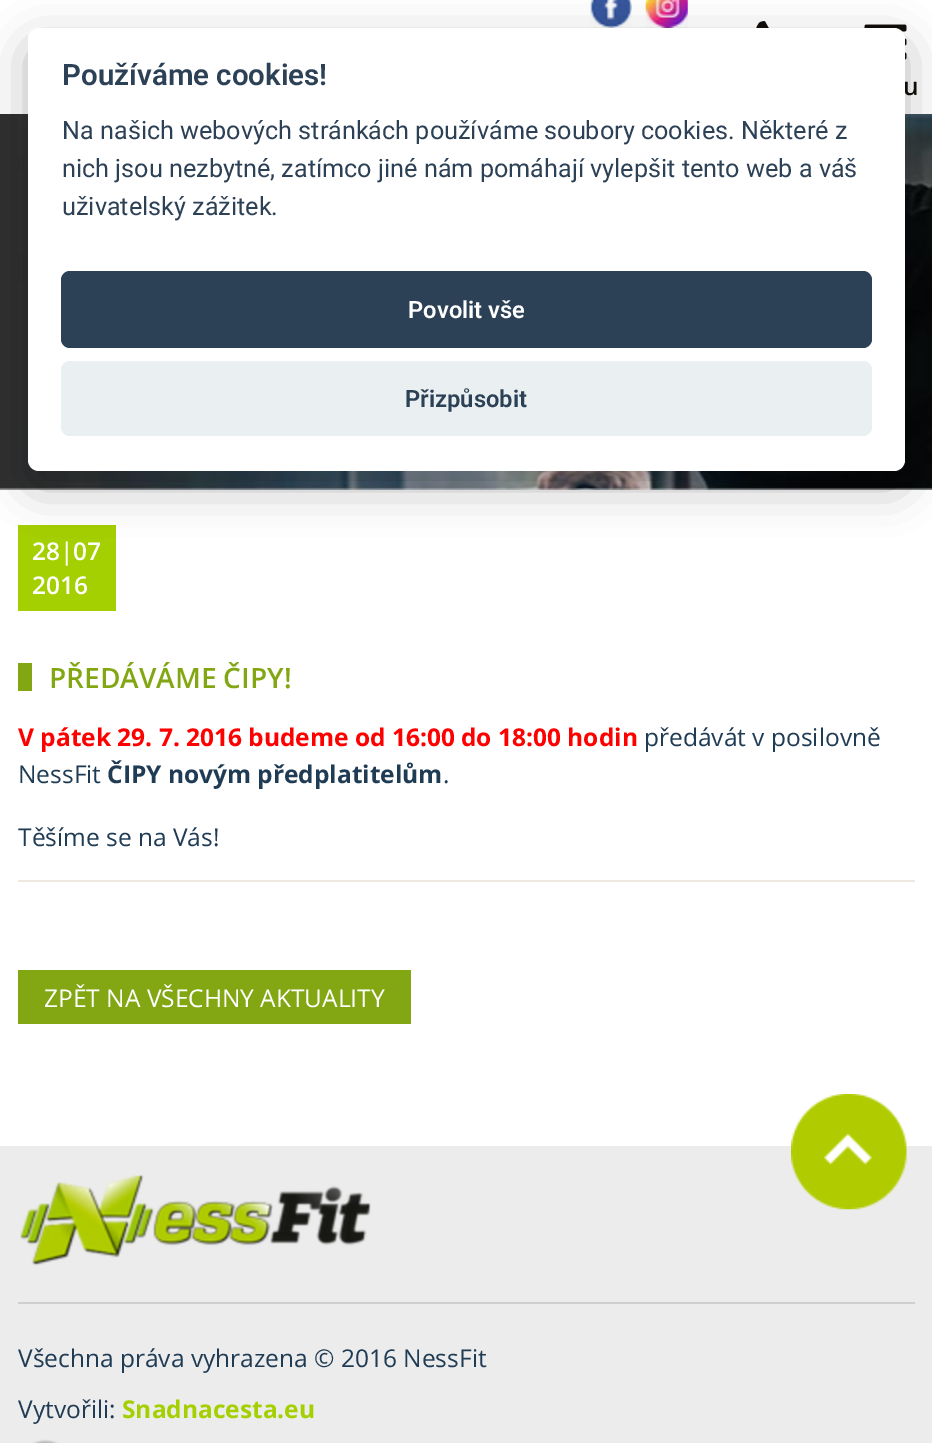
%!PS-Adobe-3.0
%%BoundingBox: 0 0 932 1443
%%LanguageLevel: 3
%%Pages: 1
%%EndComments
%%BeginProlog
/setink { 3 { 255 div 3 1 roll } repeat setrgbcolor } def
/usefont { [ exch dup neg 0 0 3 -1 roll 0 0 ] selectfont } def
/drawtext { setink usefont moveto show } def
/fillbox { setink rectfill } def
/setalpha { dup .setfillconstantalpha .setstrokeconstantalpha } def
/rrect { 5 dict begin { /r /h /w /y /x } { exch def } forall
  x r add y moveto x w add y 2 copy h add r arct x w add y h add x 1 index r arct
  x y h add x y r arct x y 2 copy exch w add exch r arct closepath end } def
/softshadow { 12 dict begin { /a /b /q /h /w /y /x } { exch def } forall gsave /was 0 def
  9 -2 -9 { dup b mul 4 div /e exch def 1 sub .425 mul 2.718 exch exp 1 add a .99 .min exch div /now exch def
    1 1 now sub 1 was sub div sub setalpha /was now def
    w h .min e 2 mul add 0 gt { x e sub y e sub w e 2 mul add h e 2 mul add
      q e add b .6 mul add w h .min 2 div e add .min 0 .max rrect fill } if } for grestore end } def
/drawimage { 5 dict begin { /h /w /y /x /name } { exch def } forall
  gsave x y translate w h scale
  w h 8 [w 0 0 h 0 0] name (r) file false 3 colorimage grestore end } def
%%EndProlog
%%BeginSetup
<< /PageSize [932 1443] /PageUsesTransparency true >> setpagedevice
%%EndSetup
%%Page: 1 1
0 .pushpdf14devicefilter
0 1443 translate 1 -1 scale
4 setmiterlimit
0 0 932 1443 255 255 255 fillbox
(assets/img1.rgb) 590 0 42 28 drawimage
(assets/img2.rgb) 645 0 43 28 drawimage
(assets/img3.rgb) 756 21 13 7 drawimage
(assets/img4.rgb) 864 24 43 36 drawimage
(assets/img5.rgb) 0 114 932 376 drawimage
18 525 98 86 164 207 0 fillbox
2 2 3 setink
28 44 877 443 11 23 0.28 softshadow
255 255 255 setink
28 28 877 443 11 rrect fill
(Používáme cookies!) 62 85 /Roboto-SemiBold 29.5 45 65 86 drawtext
(Na našich webových stránkách používáme soubory cookies. Některé z) 62 139 /Roboto-Regular 25.2 45 65 86 drawtext
(nich jsou nezbytné, zatímco jiné nám pomáhají vylepšit tento web a váš) 62 177 /Roboto-Regular 25.2 45 65 86 drawtext
(uživatelský zážitek.) 62 215 /Roboto-Regular 25.2 45 65 86 drawtext
61 271 811 77 9 rrect fill
(Povolit vše) 408 318 /Roboto-SemiBold 23.75 255 255 255 drawtext
234 239 242 setink
61 361 811 75 9 rrect fill
(Přizpůsobit) 405 407 /Roboto-SemiBold 23.75 45 65 86 drawtext
(u) 903 95 /OpenSans-SemiBold 24.5 17 13 10 drawtext
(28|07) 32 560 /OpenSans-SemiBold 24.5 255 255 255 drawtext
(2016) 32 594 /OpenSans-SemiBold 24.5 255 255 255 drawtext
18 663 14 28 130 167 19 fillbox
(PŘEDÁVÁME ČIPY!) 49 688 /OpenSans-SemiBold 28 130 167 19 drawtext
(V pátek 29. 7. 2016 budeme od 16:00 do 18:00 hodin) 18 746 /OpenSans-Bold 24.5 255 0 0 drawtext
(předávát v posilovně) 644 746 /OpenSans-Regular 24.5 32 60 85 drawtext
(NessFit) 18 783 /OpenSans-Regular 24.5 32 60 85 drawtext
(ČIPY novým předplatitelům) 107 783 /OpenSans-Bold 24.5 32 60 85 drawtext
(.) 443 783 /OpenSans-Regular 24.5 32 60 85 drawtext
(Těšíme se na Vás!) 18 846 /OpenSans-Regular 24.5 32 60 85 drawtext
18 880 897 2 238 232 225 fillbox
18 970 393 54 130 167 19 fillbox
(ZPĚT NA VŠECHNY AKTUALITY) 44 1007 /OpenSans-Regular 24.5 255 255 255 drawtext
0 1146 932 297 236 236 236 fillbox
(assets/img6.rgb) 791 1094 116 116 drawimage
18 1302 897 2 207 207 207 fillbox
(assets/img7.rgb) 20 1174 351 92 drawimage
(Všechna práva vyhrazena © 2016 NessFit) 18 1367 /OpenSans-Regular 24.5 32 60 85 drawtext
(Vytvořili:) 18 1418 /OpenSans-Regular 24.5 32 60 85 drawtext
(Snadnacesta.eu) 122 1418 /OpenSans-Bold 24.5 164 207 0 drawtext
(assets/img8.rgb) 32 1439 26 4 drawimage
.poppdf14devicefilter showpage
%%EOF
